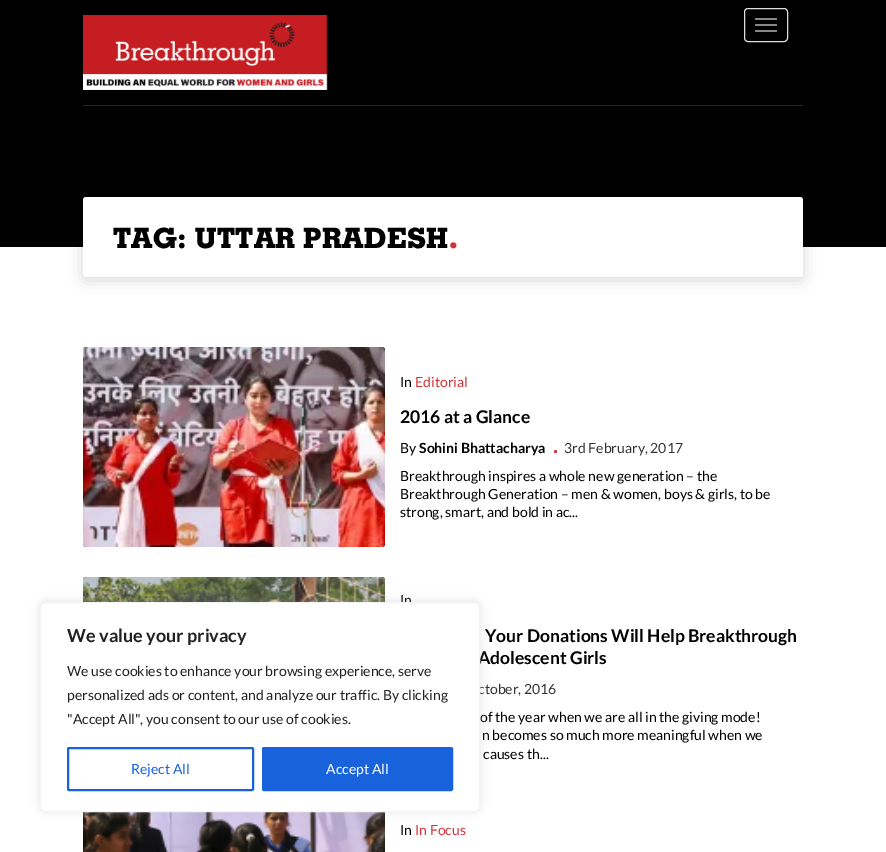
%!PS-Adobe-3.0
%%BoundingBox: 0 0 886 852
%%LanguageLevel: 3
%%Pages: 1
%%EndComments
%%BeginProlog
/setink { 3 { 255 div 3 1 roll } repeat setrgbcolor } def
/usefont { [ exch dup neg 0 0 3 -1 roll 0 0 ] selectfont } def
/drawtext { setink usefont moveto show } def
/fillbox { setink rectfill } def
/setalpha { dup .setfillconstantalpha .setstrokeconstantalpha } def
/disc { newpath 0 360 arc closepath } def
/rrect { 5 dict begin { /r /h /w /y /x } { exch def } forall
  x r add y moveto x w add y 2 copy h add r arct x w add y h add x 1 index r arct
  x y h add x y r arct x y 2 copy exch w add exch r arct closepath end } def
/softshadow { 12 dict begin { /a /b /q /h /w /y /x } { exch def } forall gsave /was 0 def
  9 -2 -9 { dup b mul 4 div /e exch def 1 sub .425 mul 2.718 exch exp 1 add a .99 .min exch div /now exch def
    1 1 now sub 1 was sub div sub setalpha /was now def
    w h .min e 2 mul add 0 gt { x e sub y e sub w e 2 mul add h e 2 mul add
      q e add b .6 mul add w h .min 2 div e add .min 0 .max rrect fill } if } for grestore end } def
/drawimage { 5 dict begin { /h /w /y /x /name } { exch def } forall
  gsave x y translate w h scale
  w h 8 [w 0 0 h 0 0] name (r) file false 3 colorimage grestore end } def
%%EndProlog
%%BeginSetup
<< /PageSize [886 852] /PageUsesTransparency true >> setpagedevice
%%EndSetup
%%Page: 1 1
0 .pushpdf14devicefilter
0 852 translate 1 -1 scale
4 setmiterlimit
0 0 886 852 255 255 255 fillbox
0 0 886 247 0 0 0 fillbox
83 105 720 1 38 38 38 fillbox
(assets/img1.rgb) 83 15 245 75 drawimage
221 221 221 setink
744.5 8.5 43 33 3.5 rrect stroke
136 136 136 setink
755 18 22 2 1 rrect fill
755 24 22 2 1 rrect fill
755 30 22 2 1 rrect fill
0 0 0 setink
83 200 720 80 3 7.5 0.15 softshadow
255 255 255 setink
83 197 720 80 3 rrect fill
/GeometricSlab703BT-Bold 28 usefont
0 0 0 setink
113 248 moveto 0.4 0 (TAG: UTTAR PRADESH) ashow
/GeometricSlab703BT-Bold 31 usefont
209 50 57 setink
449 248 moveto 0.4 0 (.) ashow
(assets/img2.rgb) 83 347 302 200 drawimage
(In) 400 387 /Lato-Regular 14 0 0 0 drawtext
(Editorial) 415 387 /Lato-Regular 14 209 50 57 drawtext
(2016 at a Glance) 400 423 /Lato-Bold 17.5 0 0 0 drawtext
(By) 400 453 /Lato-Regular 14 0 0 0 drawtext
(Sohini Bhattacharya) 419 453 /Lato-Bold 14 0 0 0 drawtext
209 50 57 setink
555.5 451.5 1.5 disc fill
(3rd February, 2017) 564 453 /Lato-Regular 14 51 51 51 drawtext
(Breakthrough inspires a whole new generation – the) 400 481 /Lato-Regular 14 0 0 0 drawtext
(Breakthrough Generation – men & women, boys & girls, to be) 400 499 /Lato-Regular 14 0 0 0 drawtext
(strong, smart, and bold in ac...) 400 517 /Lato-Regular 14 0 0 0 drawtext
(assets/img3.rgb) 83 577 302 25 drawimage
(In) 400 605 /Lato-Regular 14 0 0 0 drawtext
(Your Donations Will Help Breakthrough) 485 642 /Lato-Bold 17.5 0 0 0 drawtext
(Adolescent Girls) 478 664 /Lato-Bold 17.5 0 0 0 drawtext
(ctober, 2016) 478 694 /Lato-Regular 14 51 51 51 drawtext
(of the year when we are all in the giving mode!) 480 722 /Lato-Regular 14 0 0 0 drawtext
(n becomes so much more meaningful when we) 482 740 /Lato-Regular 14 0 0 0 drawtext
(causes th...) 483 759 /Lato-Regular 14 0 0 0 drawtext
(assets/img4.rgb) 83 812 302 40 drawimage
(In) 400 835 /Lato-Regular 14 0 0 0 drawtext
(In Focus) 415 835 /Lato-Regular 14 209 50 57 drawtext
172 171 171 setink
40 601 440 210 6 5 0.3 softshadow
255 255 255 setink
40.5 602.5 439 209 5.5 rrect gsave fill grestore
244 244 244 setink
stroke
(We value your privacy) 67 642 /Lato-Bold 18 33 33 33 drawtext
(We use cookies to enhance your browsing experience, serve) 67 676 /Lato-Regular 14 33 33 33 drawtext
(personalized ads or content, and analyze our traffic. By clicking) 67 700 /Lato-Regular 14 33 33 33 drawtext
("Accept All", you consent to our use of cookies.) 67 724 /Lato-Regular 14 33 33 33 drawtext
24 99 220 setink
2 setlinewidth
68 748 185 42 1 rrect stroke
(Reject All) 131 774 /Lato-Regular 14 24 99 220 drawtext
263 748 189 42 1 rrect gsave fill grestore
stroke
(Accept All) 326 774 /Lato-Regular 14 255 255 255 drawtext
.poppdf14devicefilter showpage
%%EOF
